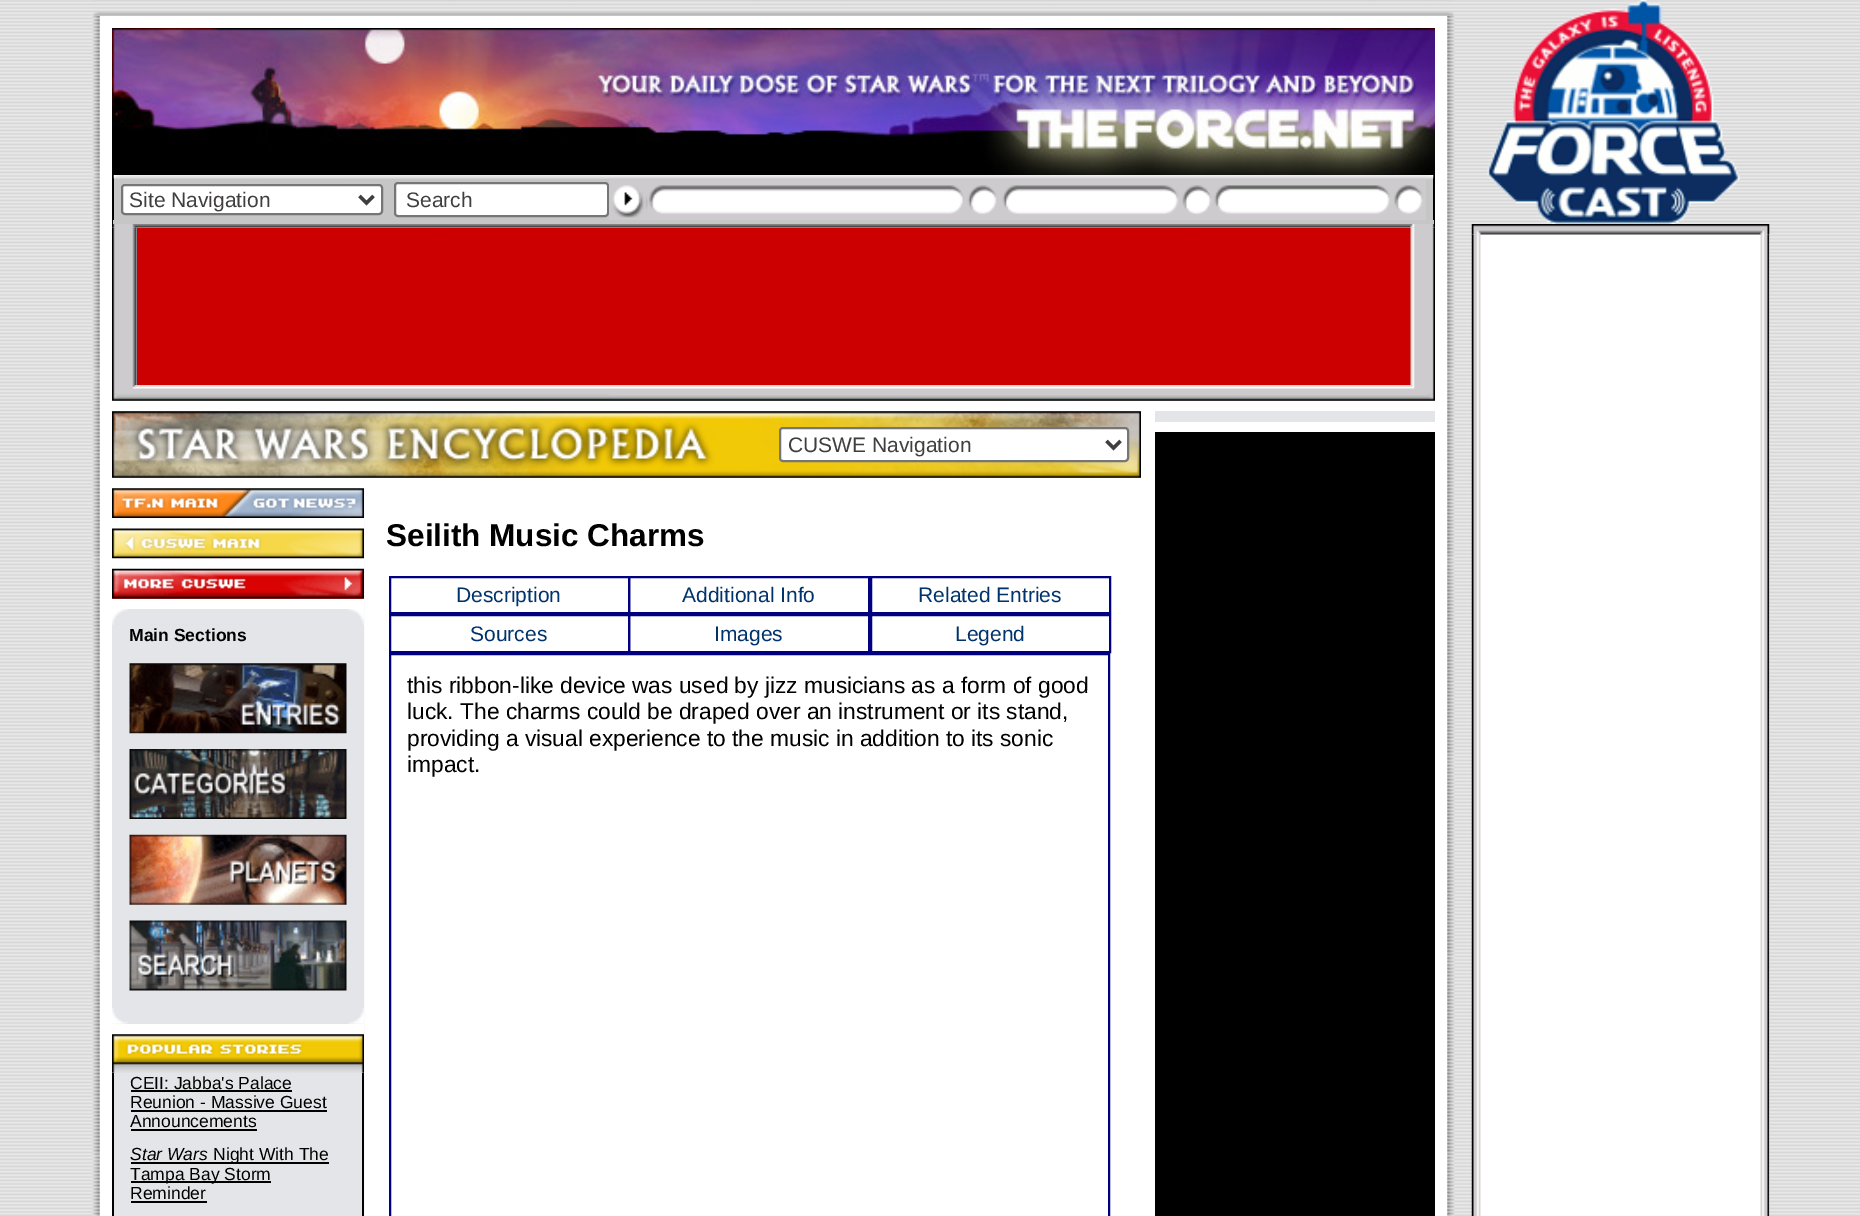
%!PS-Adobe-3.0
%%BoundingBox: 0 0 1860 1216
%%LanguageLevel: 3
%%Pages: 1
%%EndComments
%%BeginProlog
/setink { 3 { 255 div 3 1 roll } repeat setrgbcolor } def
/usefont { [ exch dup neg 0 0 3 -1 roll 0 0 ] selectfont } def
/drawtext { setink usefont moveto show } def
/fillbox { setink rectfill } def
/rrect { 5 dict begin { /r /h /w /y /x } { exch def } forall
  x r add y moveto x w add y 2 copy h add r arct x w add y h add x 1 index r arct
  x y h add x y r arct x y 2 copy exch w add exch r arct closepath end } def
/drawimage { 5 dict begin { /h /w /y /x /name } { exch def } forall
  gsave x y translate w h scale
  w h 8 [w 0 0 h 0 0] name (r) file false 3 colorimage grestore end } def
%%EndProlog
%%BeginSetup
<< /PageSize [1860 1216] >> setpagedevice
%%EndSetup
%%Page: 1 1
0 1216 translate 1 -1 scale
4 setmiterlimit
0 0 1860 1216 255 255 255 fillbox
(assets/img1.rgb) 0 0 1860 1216 drawimage
93 15 1361 1201 255 255 255 fillbox
(assets/img3.rgb) 92 15 8 386 drawimage
(assets/img12.rgb) 1447 15 8 386 drawimage
(assets/img2.rgb) 93 0 1361 16 drawimage
(assets/img4.rgb) 112 28 1323 147 drawimage
112 175 2 46 0 0 0 fillbox
114 178 1319 1 206 203 206 fillbox
1433 175 2 46 0 0 0 fillbox
(assets/img5.rgb) 113 175 1321 4 drawimage
114 179 1319 41 198 198 198 fillbox
255 255 255 setink
122 185 260 29 3 rrect gsave fill grestore
118 118 118 setink
2 setlinewidth
stroke
64 62 62 setink
3.5 setlinewidth
359.5 196 moveto 366.5 203 lineto 373.5 196 lineto stroke
(Site Navigation) 129 207 /LiberationSans-Regular 21 64 62 62 drawtext
255 255 255 setink
395 183 213 33 3 rrect gsave fill grestore
118 118 118 setink
2 setlinewidth
stroke
(Search) 406 207 /LiberationSans-Regular 21 64 62 62 drawtext
(assets/img6.rgb) 609 178 37 42 drawimage
(assets/img7.rgb) 645 178 781 42 drawimage
112 221 1 4 0 0 0 fillbox
113 220 1321 4 198 198 198 fillbox
1434 221 1 4 0 0 0 fillbox
112 227 1323 174 206 203 206 fillbox
(assets/img8.rgb) 112 224 1323 4 drawimage
(assets/img9.rgb) 112 227 25 158 drawimage
137 228 1274 157 204 0 0 fillbox
(assets/img10.rgb) 1410 227 25 158 drawimage
(assets/img11.rgb) 112 385 1323 16 drawimage
(assets/img13.rgb) 92 400 8 816 drawimage
(assets/img14.rgb) 112 411 253 805 drawimage
(assets/img15.rgb) 112 411 1029 67 drawimage
255 255 255 setink
780 428 348 33 3 rrect gsave fill grestore
118 118 118 setink
stroke
64 62 62 setink
3.5 setlinewidth
1106.5 441 moveto 1113.5 448 lineto 1120.5 441 lineto stroke
(CUSWE Navigation) 788 452 /LiberationSans-Regular 21 64 62 62 drawtext
112 478 253 10 255 255 255 fillbox
112 488 252 585 255 255 255 fillbox
(assets/img16.rgb) 112 488 252 30 drawimage
(assets/img17.rgb) 112 528 252 31 drawimage
112 598 252 1 224 52 52 fillbox
(assets/img18.rgb) 112 568 252 31 drawimage
112 624 252 400 228 229 232 fillbox
(assets/img19.rgb) 112 609 252 16 drawimage
(Main Sections) 129 641 /LiberationSans-Bold 17.5 0 0 0 drawtext
(assets/img20.rgb) 129 663 218 71 drawimage
(assets/img21.rgb) 129 749 218 70 drawimage
(assets/img22.rgb) 129 834 218 71 drawimage
(assets/img23.rgb) 129 920 218 71 drawimage
(assets/img24.rgb) 112 1008 252 16 drawimage
(assets/img25.rgb) 112 1034 252 39 drawimage
112 1073 2 143 0 0 0 fillbox
114 1073 248 143 228 229 232 fillbox
362 1073 2 143 0 0 0 fillbox
(CEII: Jabba's Palace) 130 1089 /LiberationSans-Regular 17.5 0 0 0 drawtext
131 1090 161 2 0 0 0 fillbox
(Reunion - Massive Guest) 130 1108 /LiberationSans-Regular 17.5 0 0 0 drawtext
131 1110 196 2 0 0 0 fillbox
(Announcements) 130 1127 /LiberationSans-Regular 17.5 0 0 0 drawtext
131 1129 126 2 0 0 0 fillbox
(Star Wars) 130 1160 /LiberationSans-Italic 17.5 0 0 0 drawtext
131 1162 198 2 0 0 0 fillbox
(Night With The) 213 1160 /LiberationSans-Regular 17.5 0 0 0 drawtext
131 1181 140 2 0 0 0 fillbox
(Tampa Bay Storm) 130 1180 /LiberationSans-Regular 17.5 0 0 0 drawtext
(Reminder) 130 1199 /LiberationSans-Regular 17.5 0 0 0 drawtext
131 1201 76 2 0 0 0 fillbox
(Seilith Music Charms) 386 546 /LiberationSans-Bold 31.5 0 0 0 drawtext
0 0 128 setink
2 setlinewidth
390 577 239 36 rectstroke
(Description) 456 602 /LiberationSans-Regular 21 0 51 108 drawtext
0 0 128 setink
629 577 240 36 rectstroke
(Additional Info) 682 602 /LiberationSans-Regular 21 0 51 108 drawtext
0 0 128 setink
871 577 239 36 rectstroke
(Related Entries) 918 602 /LiberationSans-Regular 21 0 51 108 drawtext
0 0 128 setink
390 615 239 37 rectstroke
(Sources) 470 641 /LiberationSans-Regular 21 0 51 108 drawtext
0 0 128 setink
629 615 240 37 rectstroke
(Images) 714 641 /LiberationSans-Regular 21 0 51 108 drawtext
0 0 128 setink
871 615 239 37 rectstroke
(Legend) 955 641 /LiberationSans-Regular 21 0 51 108 drawtext
0 0 128 setink
390 654 719 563 rectstroke
(this ribbon-like device was used by jizz musicians as a form of good) 407 693 /LiberationSans-Regular 22.75 0 0 0 drawtext
(luck. The charms could be draped over an instrument or its stand,) 407 719 /LiberationSans-Regular 22.75 0 0 0 drawtext
(providing a visual experience to the music in addition to its sonic) 407 746 /LiberationSans-Regular 22.75 0 0 0 drawtext
(impact.) 407 772 /LiberationSans-Regular 22.75 0 0 0 drawtext
1155 411 280 11 228 229 232 fillbox
1155 432 280 784 0 0 0 fillbox
(assets/img26.rgb) 1447 400 8 816 drawimage
(assets/img27.rgb) 1487 0 253 224 drawimage
(assets/img29.rgb) 1471 234 299 982 drawimage
(assets/img28.rgb) 1471 224 299 11 drawimage
showpage
%%EOF
